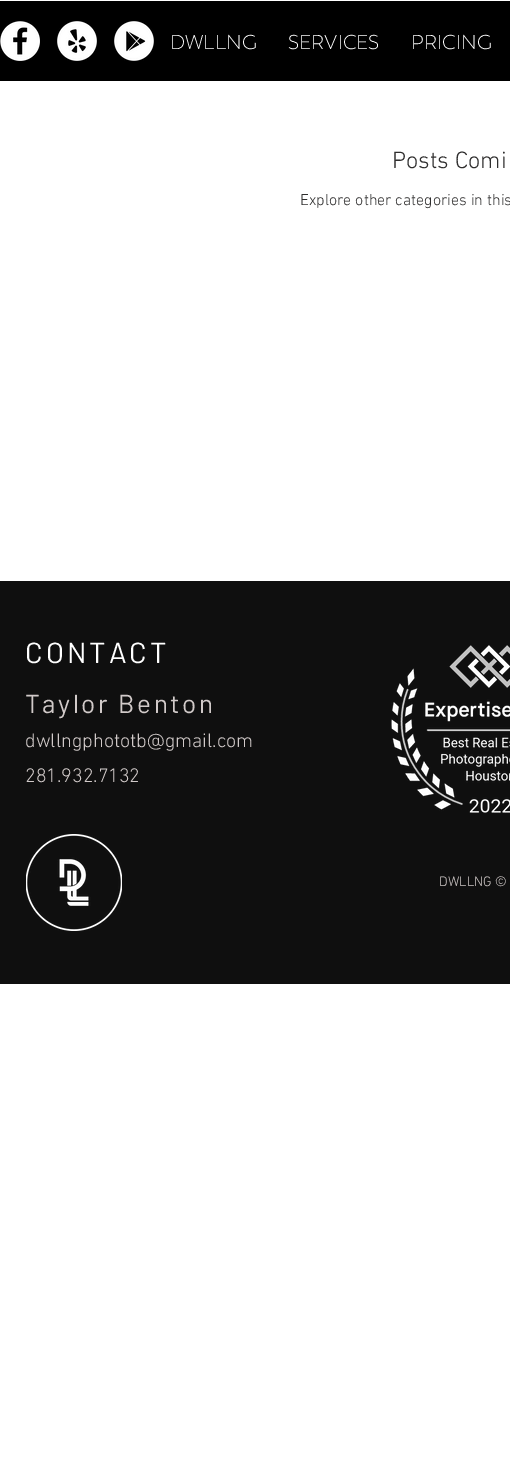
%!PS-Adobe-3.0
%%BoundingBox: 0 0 510 1458
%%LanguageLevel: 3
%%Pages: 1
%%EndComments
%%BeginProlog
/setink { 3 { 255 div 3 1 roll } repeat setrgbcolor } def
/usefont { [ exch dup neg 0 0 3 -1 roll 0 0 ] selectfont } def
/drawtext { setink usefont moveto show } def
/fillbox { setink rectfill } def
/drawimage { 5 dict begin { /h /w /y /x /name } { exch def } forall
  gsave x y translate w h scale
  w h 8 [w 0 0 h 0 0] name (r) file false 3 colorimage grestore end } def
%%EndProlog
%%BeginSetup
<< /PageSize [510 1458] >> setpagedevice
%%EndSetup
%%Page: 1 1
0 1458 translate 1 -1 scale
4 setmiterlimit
0 0 510 1458 255 255 255 fillbox
0 1 510 80 0 0 0 fillbox
(assets/img1.rgb) 0 21 40 40 drawimage
(assets/img2.rgb) 57 21 40 40 drawimage
(assets/img3.rgb) 114 21 40 40 drawimage
(DWLLNG) 170 49 /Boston-Light 20 255 255 255 drawtext
(SERVICES) 288 49 /Boston-Light 20 255 255 255 drawtext
(PRICING) 411 49 /Boston-Light 20 255 255 255 drawtext
(Posts Comi) 392 168 /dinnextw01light-Light 24 47 46 46 drawtext
(Explore other categories in this) 300 205 /dinnextw01light-Light 16 47 46 46 drawtext
0 581 510 403 15 15 15 fillbox
/Barlow-Regular 29 usefont
255 255 255 setink
25 663 moveto 3 0 (CONTACT) ashow
/Barlow-Regular 26 usefont
209 202 201 setink
25 713 moveto 2.6 0 (Taylor Benton) ashow
(dwllngphototb@gmail.com) 25 747 /dinnextw01light-Light 20 209 202 201 drawtext
(281.932.7132) 25 782 /dinnextw01light-Light 20 209 202 201 drawtext
(assets/img4.rgb) 26 834 96 97 drawimage
(assets/img5.rgb) 391 645 119 168 drawimage
(DWLLNG ©) 439 886 /dinnextw01light-Light 14 209 202 201 drawtext
showpage
%%EOF
